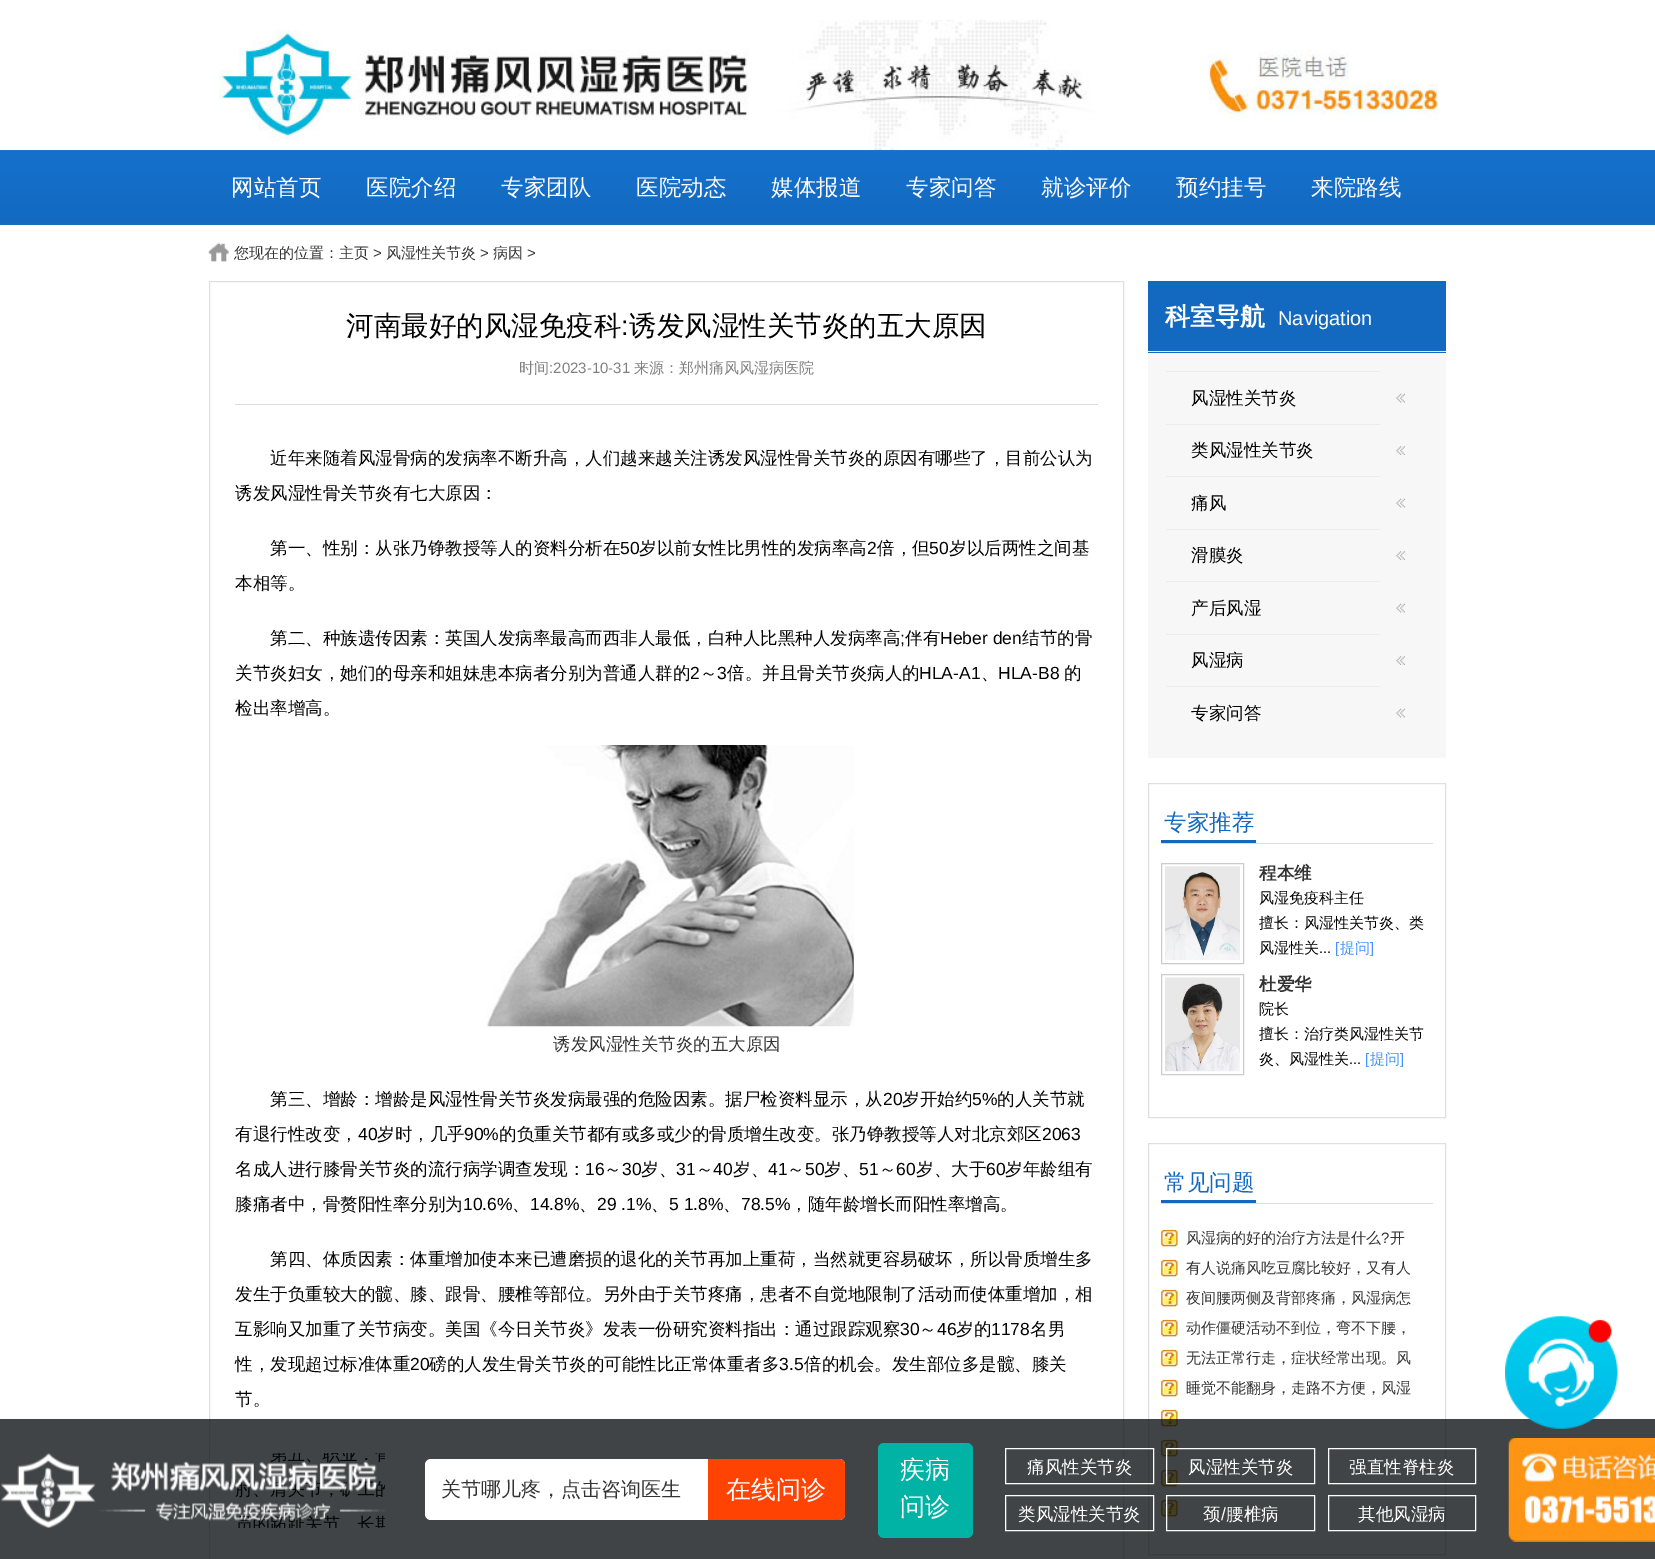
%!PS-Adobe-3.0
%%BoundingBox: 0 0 1655 1559
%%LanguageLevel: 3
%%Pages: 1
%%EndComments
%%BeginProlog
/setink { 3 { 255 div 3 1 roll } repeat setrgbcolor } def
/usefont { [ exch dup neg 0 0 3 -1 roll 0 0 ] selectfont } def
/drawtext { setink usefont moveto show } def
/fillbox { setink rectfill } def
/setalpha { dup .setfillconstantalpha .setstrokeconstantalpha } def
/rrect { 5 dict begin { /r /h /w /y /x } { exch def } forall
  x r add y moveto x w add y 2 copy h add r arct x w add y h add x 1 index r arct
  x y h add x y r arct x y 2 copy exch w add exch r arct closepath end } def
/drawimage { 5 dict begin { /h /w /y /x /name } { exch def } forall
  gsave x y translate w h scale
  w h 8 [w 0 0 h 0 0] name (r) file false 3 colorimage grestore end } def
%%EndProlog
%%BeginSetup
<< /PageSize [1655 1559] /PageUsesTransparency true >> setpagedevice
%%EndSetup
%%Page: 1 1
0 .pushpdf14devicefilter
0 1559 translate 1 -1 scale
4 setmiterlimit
0 0 1655 1559 255 255 255 fillbox
(assets/img1.rgb) 219 20 1220 130 drawimage
(assets/img2.rgb) 0 150 1655 75 drawimage
(网站首页) 231 195 /WenQuanYiZenHei-Medium 22.5 255 255 255 drawtext
(医院介绍) 366 195 /WenQuanYiZenHei-Medium 22.5 255 255 255 drawtext
(专家团队) 501 195 /WenQuanYiZenHei-Medium 22.5 255 255 255 drawtext
(医院动态) 636 195 /WenQuanYiZenHei-Medium 22.5 255 255 255 drawtext
(媒体报道) 771 195 /WenQuanYiZenHei-Medium 22.5 255 255 255 drawtext
(专家问答) 906 195 /WenQuanYiZenHei-Medium 22.5 255 255 255 drawtext
(就诊评价) 1041 195 /WenQuanYiZenHei-Medium 22.5 255 255 255 drawtext
(预约挂号) 1176 195 /WenQuanYiZenHei-Medium 22.5 255 255 255 drawtext
(来院路线) 1311 195 /WenQuanYiZenHei-Medium 22.5 255 255 255 drawtext
(assets/img3.rgb) 208 242 21 20 drawimage
(您现在的位置：主页) 234 258 /WenQuanYiZenHei-Medium 15 51 51 51 drawtext
(>) 373 258 /LiberationSans-Regular 15 51 51 51 drawtext
(风湿性关节炎) 386 258 /WenQuanYiZenHei-Medium 15 51 51 51 drawtext
(>) 480 258 /LiberationSans-Regular 15 51 51 51 drawtext
(病因) 493 258 /WenQuanYiZenHei-Medium 15 51 51 51 drawtext
(>) 527 258 /LiberationSans-Regular 15 51 51 51 drawtext
224 224 224 setink
209.5 281.5 914 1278 rectstroke
(河南最好的风湿免疫科) 346 335 /WenQuanYiZenHei-Medium 27.5 0 0 0 drawtext
(:) 621 335 /LiberationSans-Regular 27.5 0 0 0 drawtext
(诱发风湿性关节炎的五大原因) 629 335 /WenQuanYiZenHei-Medium 27.5 0 0 0 drawtext
(时间) 519 373 /WenQuanYiZenHei-Medium 15 128 128 128 drawtext
(:2023-10-31) 549 373 /LiberationSans-Regular 15 128 128 128 drawtext
(来源：郑州痛风风湿病医院) 634 373 /WenQuanYiZenHei-Medium 15 128 128 128 drawtext
235 404 863 1 221 221 221 fillbox
(近年来随着风湿骨病的发病率不断升高，人们越来越关注诱发风湿性骨关节炎的原因有哪些了，目前公认为) 270 464 /WenQuanYiZenHei-Medium 17.5 0 0 0 drawtext
(诱发风湿性骨关节炎有七大原因：) 235 499 /WenQuanYiZenHei-Medium 17.5 0 0 0 drawtext
(第一、性别：从张乃铮教授等人的资料分析在) 270 554 /WenQuanYiZenHei-Medium 17.5 0 0 0 drawtext
(50) 620 554 /LiberationSans-Regular 17.5 0 0 0 drawtext
(岁以前女性比男性的发病率高) 639 554 /WenQuanYiZenHei-Medium 17.5 0 0 0 drawtext
(2) 867 554 /LiberationSans-Regular 17.5 0 0 0 drawtext
(倍，但) 877 554 /WenQuanYiZenHei-Medium 17.5 0 0 0 drawtext
(50) 929 554 /LiberationSans-Regular 17.5 0 0 0 drawtext
(岁以后两性之间基) 949 554 /WenQuanYiZenHei-Medium 17.5 0 0 0 drawtext
(本相等。) 235 589 /WenQuanYiZenHei-Medium 17.5 0 0 0 drawtext
(第二、种族遗传因素：英国人发病率最高而西非人最低，白种人比黑种人发病率高) 270 644 /WenQuanYiZenHei-Medium 17.5 0 0 0 drawtext
(;) 900 644 /LiberationSans-Regular 17.5 0 0 0 drawtext
(伴有) 905 644 /WenQuanYiZenHei-Medium 17.5 0 0 0 drawtext
(Heber den) 940 644 /LiberationSans-Regular 17.5 0 0 0 drawtext
(结节的骨) 1022 644 /WenQuanYiZenHei-Medium 17.5 0 0 0 drawtext
(关节炎妇女，她们的母亲和姐妹患本病者分别为普通人群的) 235 679 /WenQuanYiZenHei-Medium 17.5 0 0 0 drawtext
(2) 690 679 /LiberationSans-Regular 17.5 0 0 0 drawtext
(～) 700 679 /WenQuanYiZenHei-Medium 17.5 0 0 0 drawtext
(3) 717 679 /LiberationSans-Regular 17.5 0 0 0 drawtext
(倍。并且骨关节炎病人的) 727 679 /WenQuanYiZenHei-Medium 17.5 0 0 0 drawtext
(HLA-A1) 919 679 /LiberationSans-Regular 17.5 0 0 0 drawtext
(HLA-B8) 998 679 /LiberationSans-Regular 17.5 0 0 0 drawtext
(的) 1064 679 /WenQuanYiZenHei-Medium 17.5 0 0 0 drawtext
(、) 981 679 /WenQuanYiZenHei-Medium 17.5 0 0 0 drawtext
(检出率增高。) 235 714 /WenQuanYiZenHei-Medium 17.5 0 0 0 drawtext
(assets/img4.rgb) 486 745 368 282 drawimage
(诱发风湿性关节炎的五大原因) 553 1050 /WenQuanYiZenHei-Medium 17.5 51 51 51 drawtext
(第三、增龄：增龄是风湿性骨关节炎发病最强的危险因素。据尸检资料显示，从) 270 1105 /WenQuanYiZenHei-Medium 17.5 0 0 0 drawtext
(20) 883 1105 /LiberationSans-Regular 17.5 0 0 0 drawtext
(岁开始约) 902 1105 /WenQuanYiZenHei-Medium 17.5 0 0 0 drawtext
(5%) 972 1105 /LiberationSans-Regular 17.5 0 0 0 drawtext
(的人关节就) 997 1105 /WenQuanYiZenHei-Medium 17.5 0 0 0 drawtext
(有退行性改变，) 235 1140 /WenQuanYiZenHei-Medium 17.5 0 0 0 drawtext
(40) 358 1140 /LiberationSans-Regular 17.5 0 0 0 drawtext
(岁时，几乎) 377 1140 /WenQuanYiZenHei-Medium 17.5 0 0 0 drawtext
(90%) 464 1140 /LiberationSans-Regular 17.5 0 0 0 drawtext
(的负重关节都有或多或少的骨质增生改变。张乃铮教授等人对北京郊区) 499 1140 /WenQuanYiZenHei-Medium 17.5 0 0 0 drawtext
(2063) 1042 1140 /LiberationSans-Regular 17.5 0 0 0 drawtext
(名成人进行膝骨关节炎的流行病学调查发现：) 235 1175 /WenQuanYiZenHei-Medium 17.5 0 0 0 drawtext
(16) 585 1175 /LiberationSans-Regular 17.5 0 0 0 drawtext
(～) 604 1175 /WenQuanYiZenHei-Medium 17.5 0 0 0 drawtext
(30) 622 1175 /LiberationSans-Regular 17.5 0 0 0 drawtext
(岁、) 641 1175 /WenQuanYiZenHei-Medium 17.5 0 0 0 drawtext
(31) 676 1175 /LiberationSans-Regular 17.5 0 0 0 drawtext
(～) 696 1175 /WenQuanYiZenHei-Medium 17.5 0 0 0 drawtext
(40) 713 1175 /LiberationSans-Regular 17.5 0 0 0 drawtext
(岁、) 733 1175 /WenQuanYiZenHei-Medium 17.5 0 0 0 drawtext
(41) 768 1175 /LiberationSans-Regular 17.5 0 0 0 drawtext
(～) 787 1175 /WenQuanYiZenHei-Medium 17.5 0 0 0 drawtext
(50) 805 1175 /LiberationSans-Regular 17.5 0 0 0 drawtext
(岁、) 824 1175 /WenQuanYiZenHei-Medium 17.5 0 0 0 drawtext
(51) 859 1175 /LiberationSans-Regular 17.5 0 0 0 drawtext
(～) 879 1175 /WenQuanYiZenHei-Medium 17.5 0 0 0 drawtext
(60) 896 1175 /LiberationSans-Regular 17.5 0 0 0 drawtext
(岁、大于) 916 1175 /WenQuanYiZenHei-Medium 17.5 0 0 0 drawtext
(60) 986 1175 /LiberationSans-Regular 17.5 0 0 0 drawtext
(岁年龄组有) 1005 1175 /WenQuanYiZenHei-Medium 17.5 0 0 0 drawtext
(膝痛者中，骨赘阳性率分别为) 235 1210 /WenQuanYiZenHei-Medium 17.5 0 0 0 drawtext
(10.6%) 463 1210 /LiberationSans-Regular 17.5 0 0 0 drawtext
(、) 512 1210 /WenQuanYiZenHei-Medium 17.5 0 0 0 drawtext
(14.8%) 530 1210 /LiberationSans-Regular 17.5 0 0 0 drawtext
(、) 579 1210 /WenQuanYiZenHei-Medium 17.5 0 0 0 drawtext
(29 .1%) 597 1210 /LiberationSans-Regular 17.5 0 0 0 drawtext
(、) 651 1210 /WenQuanYiZenHei-Medium 17.5 0 0 0 drawtext
(5 1.8%) 669 1210 /LiberationSans-Regular 17.5 0 0 0 drawtext
(、) 723 1210 /WenQuanYiZenHei-Medium 17.5 0 0 0 drawtext
(78.5%) 741 1210 /LiberationSans-Regular 17.5 0 0 0 drawtext
(，随年龄增长而阳性率增高。) 790 1210 /WenQuanYiZenHei-Medium 17.5 0 0 0 drawtext
(第四、体质因素：体重增加使本来已遭磨损的退化的关节再加上重荷，当然就更容易破坏，所以骨质增生多) 270 1265 /WenQuanYiZenHei-Medium 17.5 0 0 0 drawtext
(发生于负重较大的髋、膝、跟骨、腰椎等部位。另外由于关节疼痛，患者不自觉地限制了活动而使体重增加，相) 235 1300 /WenQuanYiZenHei-Medium 17.5 0 0 0 drawtext
(互影响又加重了关节病变。美国《今日关节炎》发表一份研究资料指出：通过跟踪观察) 235 1335 /WenQuanYiZenHei-Medium 17.5 0 0 0 drawtext
(30) 900 1335 /LiberationSans-Regular 17.5 0 0 0 drawtext
(～) 919 1335 /WenQuanYiZenHei-Medium 17.5 0 0 0 drawtext
(46) 937 1335 /LiberationSans-Regular 17.5 0 0 0 drawtext
(岁的) 956 1335 /WenQuanYiZenHei-Medium 17.5 0 0 0 drawtext
(1178) 991 1335 /LiberationSans-Regular 17.5 0 0 0 drawtext
(名男) 1030 1335 /WenQuanYiZenHei-Medium 17.5 0 0 0 drawtext
(性，发现超过标准体重) 235 1370 /WenQuanYiZenHei-Medium 17.5 0 0 0 drawtext
(20) 410 1370 /LiberationSans-Regular 17.5 0 0 0 drawtext
(磅的人发生骨关节炎的可能性比正常体重者多) 429 1370 /WenQuanYiZenHei-Medium 17.5 0 0 0 drawtext
(3.5) 779 1370 /LiberationSans-Regular 17.5 0 0 0 drawtext
(倍的机会。发生部位多是髋、膝关) 804 1370 /WenQuanYiZenHei-Medium 17.5 0 0 0 drawtext
(节。) 235 1405 /WenQuanYiZenHei-Medium 17.5 0 0 0 drawtext
1148 281 298 72 19 105 192 fillbox
1148 351 298 1 236 236 236 fillbox
(科室导航) 1165 325 /WenQuanYiZenHei-Bold 25 255 255 255 drawtext
(Navigation) 1278 325 /LiberationSans-Regular 20 255 255 255 drawtext
1148 353 298 405 247 247 247 fillbox
1166 371 214 1 236 236 236 fillbox
(风湿性关节炎) 1191 404 /WenQuanYiZenHei-Medium 17.5 0 0 0 drawtext
(assets/img5.rgb) 1396 393 9 10 drawimage
1166 424 214 1 236 236 236 fillbox
(类风湿性关节炎) 1191 456 /WenQuanYiZenHei-Medium 17.5 0 0 0 drawtext
(assets/img6.rgb) 1396 446 9 9 drawimage
1166 476 214 1 236 236 236 fillbox
(痛风) 1191 509 /WenQuanYiZenHei-Medium 17.5 0 0 0 drawtext
(assets/img5.rgb) 1396 498 9 10 drawimage
1166 529 214 1 236 236 236 fillbox
(滑膜炎) 1191 561 /WenQuanYiZenHei-Medium 17.5 0 0 0 drawtext
(assets/img6.rgb) 1396 551 9 9 drawimage
1166 581 214 1 236 236 236 fillbox
(产后风湿) 1191 614 /WenQuanYiZenHei-Medium 17.5 0 0 0 drawtext
(assets/img5.rgb) 1396 603 9 10 drawimage
1166 634 214 1 236 236 236 fillbox
(风湿病) 1191 666 /WenQuanYiZenHei-Medium 17.5 0 0 0 drawtext
(assets/img6.rgb) 1396 656 9 9 drawimage
1166 686 214 1 236 236 236 fillbox
(专家问答) 1191 719 /WenQuanYiZenHei-Medium 17.5 0 0 0 drawtext
(assets/img5.rgb) 1396 708 9 10 drawimage
224 224 224 setink
1148.5 783.5 297 334 rectstroke
1161 843 272 1 221 221 221 fillbox
1161 840 95 3 19 105 192 fillbox
(专家推荐) 1164 830 /WenQuanYiZenHei-Medium 22.5 19 105 192 drawtext
204 204 204 setink
1161.5 863.5 82 100 rectstroke
(assets/img7.rgb) 1165 866 75 94 drawimage
(程本维) 1259 879 /WenQuanYiZenHei-Bold 17.5 51 51 51 drawtext
(风湿免疫科主任) 1259 903 /WenQuanYiZenHei-Medium 15 0 0 0 drawtext
(擅长：风湿性关节炎、类) 1259 928 /WenQuanYiZenHei-Medium 15 0 0 0 drawtext
(风湿性关) 1259 953 /WenQuanYiZenHei-Medium 15 0 0 0 drawtext
(...) 1319 953 /LiberationSans-Regular 15 0 0 0 drawtext
([) 1335 953 /LiberationSans-Regular 15 69 147 253 drawtext
(提问) 1340 953 /WenQuanYiZenHei-Medium 15 69 147 253 drawtext
(]) 1370 953 /LiberationSans-Regular 15 69 147 253 drawtext
204 204 204 setink
1161.5 974.5 82 100 rectstroke
(assets/img8.rgb) 1165 977 75 95 drawimage
(杜爱华) 1259 990 /WenQuanYiZenHei-Bold 17.5 51 51 51 drawtext
(院长) 1259 1014 /WenQuanYiZenHei-Medium 15 0 0 0 drawtext
(擅长：治疗类风湿性关节) 1259 1039 /WenQuanYiZenHei-Medium 15 0 0 0 drawtext
(炎、风湿性关) 1259 1064 /WenQuanYiZenHei-Medium 15 0 0 0 drawtext
(...) 1349 1064 /LiberationSans-Regular 15 0 0 0 drawtext
([) 1365 1064 /LiberationSans-Regular 15 69 147 253 drawtext
(提问) 1370 1064 /WenQuanYiZenHei-Medium 15 69 147 253 drawtext
(]) 1400 1064 /LiberationSans-Regular 15 69 147 253 drawtext
224 224 224 setink
1148.5 1143.5 297 411 rectstroke
1161 1203 272 1 221 221 221 fillbox
1161 1200 95 3 19 105 192 fillbox
(常见问题) 1164 1190 /WenQuanYiZenHei-Medium 22.5 19 105 192 drawtext
(assets/img9.rgb) 1161 1229 17 18 drawimage
(风湿病的好的治疗方法是什么) 1186 1243 /WenQuanYiZenHei-Medium 15 51 51 51 drawtext
(?) 1381 1243 /LiberationSans-Regular 15 51 51 51 drawtext
(开) 1390 1243 /WenQuanYiZenHei-Medium 15 51 51 51 drawtext
(assets/img9.rgb) 1161 1259 17 18 drawimage
(有人说痛风吃豆腐比较好，又有人) 1186 1273 /WenQuanYiZenHei-Medium 15 51 51 51 drawtext
(assets/img9.rgb) 1161 1289 17 18 drawimage
(夜间腰两侧及背部疼痛，风湿病怎) 1186 1303 /WenQuanYiZenHei-Medium 15 51 51 51 drawtext
(assets/img9.rgb) 1161 1319 17 18 drawimage
(动作僵硬活动不到位，弯不下腰，) 1186 1333 /WenQuanYiZenHei-Medium 15 51 51 51 drawtext
(assets/img9.rgb) 1161 1349 17 18 drawimage
(无法正常行走，症状经常出现。风) 1186 1363 /WenQuanYiZenHei-Medium 15 51 51 51 drawtext
(assets/img9.rgb) 1161 1379 17 18 drawimage
(睡觉不能翻身，走路不方便，风湿) 1186 1393 /WenQuanYiZenHei-Medium 15 51 51 51 drawtext
(assets/img9.rgb) 1161 1409 17 18 drawimage
(assets/img9.rgb) 1161 1439 17 18 drawimage
(assets/img9.rgb) 1161 1469 17 18 drawimage
(assets/img9.rgb) 1161 1499 17 18 drawimage
0.75 setalpha
0 1419 1655 140 0 6 8 fillbox
1 setalpha
(assets/img10.rgb) 1505 1316 113 113 drawimage
(assets/img11.rgb) 1 1453 384 75 drawimage
255 255 255 setink
425 1459 420 61 6 rrect fill
(关节哪儿疼，点击咨询医生) 441 1496 /WenQuanYiZenHei-Medium 20 51 51 51 drawtext
255 67 2 setink
708 1459 moveto 839 1459 lineto 842.5 1459 845 1461.5 845 1465 curveto 845 1514 lineto 845 1517.5 842.5 1520 839 1520 curveto 708 1520 lineto closepath fill
(在线问诊) 726 1498 /WenQuanYiZenHei-Medium 25 255 255 255 drawtext
0 179 164 setink
878 1443 95 95 6 rrect fill
(疾病) 900 1478 /WenQuanYiZenHei-Medium 25 255 255 255 drawtext
(问诊) 900 1515 /WenQuanYiZenHei-Medium 25 255 255 255 drawtext
1005.5 1448.5 148 35 rectstroke
(痛风性关节炎) 1027 1473 /WenQuanYiZenHei-Medium 17.5 255 255 255 drawtext
1166.5 1448.5 148 35 rectstroke
(风湿性关节炎) 1188 1473 /WenQuanYiZenHei-Medium 17.5 255 255 255 drawtext
1328.5 1448.5 147 35 rectstroke
(强直性脊柱炎) 1349 1473 /WenQuanYiZenHei-Medium 17.5 255 255 255 drawtext
1005.5 1495.5 148 35 rectstroke
(类风湿性关节炎) 1018 1520 /WenQuanYiZenHei-Medium 17.5 255 255 255 drawtext
1166.5 1495.5 148 35 rectstroke
(颈) 1203 1520 /WenQuanYiZenHei-Medium 17.5 255 255 255 drawtext
(/) 1221 1520 /LiberationSans-Regular 17.5 255 255 255 drawtext
(腰椎病) 1226 1520 /WenQuanYiZenHei-Medium 17.5 255 255 255 drawtext
1328.5 1495.5 147 35 rectstroke
(其他风湿病) 1358 1520 /WenQuanYiZenHei-Medium 17.5 255 255 255 drawtext
(assets/img12.rgb) 1508 1438 147 104 drawimage
.poppdf14devicefilter showpage
%%EOF
